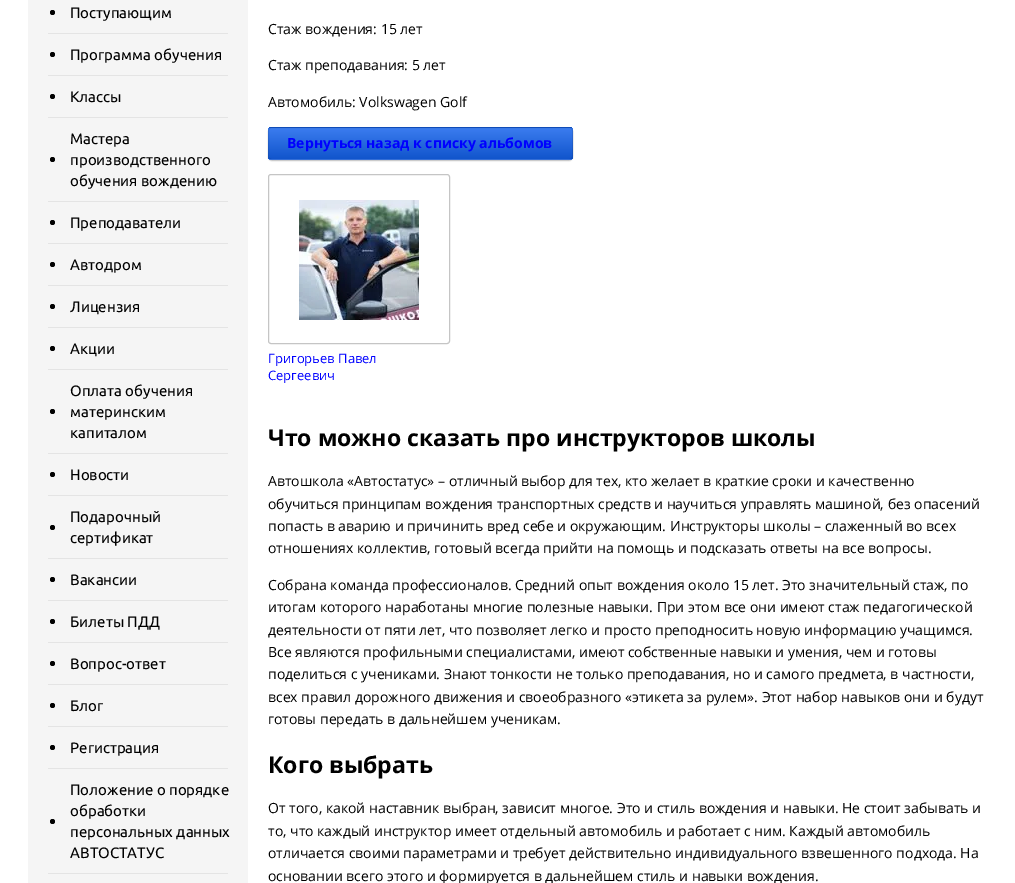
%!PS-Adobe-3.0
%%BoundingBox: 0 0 1015 883
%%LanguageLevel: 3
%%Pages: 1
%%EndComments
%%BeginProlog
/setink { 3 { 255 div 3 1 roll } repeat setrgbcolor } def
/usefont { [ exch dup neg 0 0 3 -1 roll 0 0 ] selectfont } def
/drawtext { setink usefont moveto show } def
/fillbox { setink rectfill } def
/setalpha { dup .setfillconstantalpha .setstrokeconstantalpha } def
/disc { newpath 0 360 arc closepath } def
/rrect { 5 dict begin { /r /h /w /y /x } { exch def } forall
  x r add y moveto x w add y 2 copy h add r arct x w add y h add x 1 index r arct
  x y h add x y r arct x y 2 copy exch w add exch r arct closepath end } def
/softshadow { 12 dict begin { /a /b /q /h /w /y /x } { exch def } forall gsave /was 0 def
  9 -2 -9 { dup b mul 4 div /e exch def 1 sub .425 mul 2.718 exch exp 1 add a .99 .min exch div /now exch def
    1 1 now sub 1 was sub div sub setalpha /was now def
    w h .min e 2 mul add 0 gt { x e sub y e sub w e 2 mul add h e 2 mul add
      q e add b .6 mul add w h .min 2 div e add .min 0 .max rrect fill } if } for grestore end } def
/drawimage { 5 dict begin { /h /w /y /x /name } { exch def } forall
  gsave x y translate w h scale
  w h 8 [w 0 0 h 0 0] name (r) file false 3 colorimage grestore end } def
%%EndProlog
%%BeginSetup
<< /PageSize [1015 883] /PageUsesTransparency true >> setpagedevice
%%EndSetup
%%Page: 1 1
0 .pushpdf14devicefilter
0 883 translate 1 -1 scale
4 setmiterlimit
0 0 1015 883 255 255 255 fillbox
28 0 220 883 245 245 245 fillbox
0 0 0 setink
52.5 12.5 2.5 disc fill
(Поступающим) 70 18 /Ubuntu-Regular 15 0 0 0 drawtext
48 33 180 1 228 228 228 fillbox
0 0 0 setink
52.5 54.5 2.5 disc fill
(Программа обучения) 70 60 /Ubuntu-Regular 15 0 0 0 drawtext
48 75 180 1 228 228 228 fillbox
0 0 0 setink
52.5 96.5 2.5 disc fill
(Классы) 70 102 /Ubuntu-Regular 15 0 0 0 drawtext
48 117 180 1 228 228 228 fillbox
0 0 0 setink
52.5 159.5 2.5 disc fill
(Мастера) 70 144 /Ubuntu-Regular 15 0 0 0 drawtext
(производственного) 70 165 /Ubuntu-Regular 15 0 0 0 drawtext
(обучения вождению) 70 186 /Ubuntu-Regular 15 0 0 0 drawtext
48 201 180 1 228 228 228 fillbox
0 0 0 setink
52.5 222.5 2.5 disc fill
(Преподаватели) 70 228 /Ubuntu-Regular 15 0 0 0 drawtext
48 243 180 1 228 228 228 fillbox
0 0 0 setink
52.5 264.5 2.5 disc fill
(Автодром) 70 270 /Ubuntu-Regular 15 0 0 0 drawtext
48 285 180 1 228 228 228 fillbox
0 0 0 setink
52.5 306.5 2.5 disc fill
(Лицензия) 70 312 /Ubuntu-Regular 15 0 0 0 drawtext
48 327 180 1 228 228 228 fillbox
0 0 0 setink
52.5 348.5 2.5 disc fill
(Акции) 70 354 /Ubuntu-Regular 15 0 0 0 drawtext
48 369 180 1 228 228 228 fillbox
0 0 0 setink
52.5 411.5 2.5 disc fill
(Оплата обучения) 70 396 /Ubuntu-Regular 15 0 0 0 drawtext
(материнским) 70 417 /Ubuntu-Regular 15 0 0 0 drawtext
(капиталом) 70 438 /Ubuntu-Regular 15 0 0 0 drawtext
48 453 180 1 228 228 228 fillbox
0 0 0 setink
52.5 474.5 2.5 disc fill
(Новости) 70 480 /Ubuntu-Regular 15 0 0 0 drawtext
48 495 180 1 228 228 228 fillbox
0 0 0 setink
52.5 527.5 2.5 disc fill
(Подарочный) 70 522 /Ubuntu-Regular 15 0 0 0 drawtext
(сертификат) 70 543 /Ubuntu-Regular 15 0 0 0 drawtext
48 558 180 1 228 228 228 fillbox
0 0 0 setink
52.5 579.5 2.5 disc fill
(Вакансии) 70 585 /Ubuntu-Regular 15 0 0 0 drawtext
48 600 180 1 228 228 228 fillbox
0 0 0 setink
52.5 621.5 2.5 disc fill
(Билеты ПДД) 70 627 /Ubuntu-Regular 15 0 0 0 drawtext
48 642 180 1 228 228 228 fillbox
0 0 0 setink
52.5 663.5 2.5 disc fill
(Вопрос-ответ) 70 669 /Ubuntu-Regular 15 0 0 0 drawtext
48 684 180 1 228 228 228 fillbox
0 0 0 setink
52.5 705.5 2.5 disc fill
(Блог) 70 711 /Ubuntu-Regular 15 0 0 0 drawtext
48 726 180 1 228 228 228 fillbox
0 0 0 setink
52.5 747.5 2.5 disc fill
(Регистрация) 70 753 /Ubuntu-Regular 15 0 0 0 drawtext
48 768 180 1 228 228 228 fillbox
0 0 0 setink
52.5 821.5 2.5 disc fill
(Положение о порядке) 70 795 /Ubuntu-Regular 15 0 0 0 drawtext
(обработки) 70 816 /Ubuntu-Regular 15 0 0 0 drawtext
(персональных данных) 70 837 /Ubuntu-Regular 15 0 0 0 drawtext
(АВТОСТАТУС) 70 858 /Ubuntu-Regular 15 0 0 0 drawtext
48 873 180 1 228 228 228 fillbox
(Стаж вождения: 15 лет) 268 34 /OpenSans-Regular 14 0 0 0 drawtext
(Стаж преподавания: 5 лет) 268 70 /OpenSans-Regular 14 0 0 0 drawtext
(Автомобиль: Volkswagen Golf) 268 107 /OpenSans-Regular 14 0 0 0 drawtext
268 128 305 33 4 0.5 0.2 softshadow
gsave
268 127 305 33 4 rrect clip newpath
gsave 268 127 moveto 573 127 lineto 573 128 lineto 268 128 lineto closepath clip newpath
<< /ShadingType 2 /ColorSpace /DeviceRGB /Coords [421 97 421 128] /Extend [true true] /Function << /FunctionType 2 /Domain [0 1] /C0 [0.231 0.486 0.937] /C1 [0.067 0.333 0.8] /N 1 >> >> shfill grestore
gsave 268 128 moveto 573 128 lineto 573 159 lineto 268 159 lineto closepath clip newpath
<< /ShadingType 2 /ColorSpace /DeviceRGB /Coords [421 128 421 159] /Extend [true true] /Function << /FunctionType 2 /Domain [0 1] /C0 [0.231 0.486 0.937] /C1 [0.067 0.333 0.8] /N 1 >> >> shfill grestore
gsave 268 159 moveto 573 159 lineto 573 160 lineto 268 160 lineto closepath clip newpath
<< /ShadingType 2 /ColorSpace /DeviceRGB /Coords [421 159 421 190] /Extend [true true] /Function << /FunctionType 2 /Domain [0 1] /C0 [0.231 0.486 0.937] /C1 [0.067 0.333 0.8] /N 1 >> >> shfill grestore
grestore
0.1 setalpha
268.5 127.5 304 32 3.5 rrect stroke
1 setalpha
(Вернуться назад к списку альбомов) 287 148 /OpenSans-Bold 14 0 0 255 drawtext
197 197 197 setink
268.5 174.5 181 169 2.5 rrect stroke
(assets/img1.rgb) 299 200 120 120 drawimage
(Григорьев Павел) 268 363 /OpenSans-Regular 13 0 0 255 drawtext
(Сергеевич) 268 380 /OpenSans-Regular 13 0 0 255 drawtext
(Что можно сказать про инструкторов школы) 268 446 /OpenSans-Bold 23 0 0 0 drawtext
(Автошкола «Автостатус» – отличный выбор для тех, кто желает в краткие сроки и качественно) 268 486 /OpenSans-Regular 14 0 0 0 drawtext
(обучиться принципам вождения транспортных средств и научиться управлять машиной, без опасений) 268 509 /OpenSans-Regular 14 0 0 0 drawtext
(попасть в аварию и причинить вред себе и окружающим. Инструкторы школы – слаженный во всех) 268 531 /OpenSans-Regular 14 0 0 0 drawtext
(отношениях коллектив, готовый всегда прийти на помощь и подсказать ответы на все вопросы.) 268 553 /OpenSans-Regular 14 0 0 0 drawtext
(Собрана команда профессионалов. Средний опыт вождения около 15 лет. Это значительный стаж, по) 268 590 /OpenSans-Regular 14 0 0 0 drawtext
(итогам которого наработаны многие полезные навыки. При этом все они имеют стаж педагогической) 268 612 /OpenSans-Regular 14 0 0 0 drawtext
(деятельности от пяти лет, что позволяет легко и просто преподносить новую информацию учащимся.) 268 635 /OpenSans-Regular 14 0 0 0 drawtext
(Все являются профильными специалистами, имеют собственные навыки и умения, чем и готовы) 268 657 /OpenSans-Regular 14 0 0 0 drawtext
(поделиться с учениками. Знают тонкости не только преподавания, но и самого предмета, в частности,) 268 679 /OpenSans-Regular 14 0 0 0 drawtext
(всех правил дорожного движения и своеобразного «этикета за рулем». Этот набор навыков они и будут) 268 702 /OpenSans-Regular 14 0 0 0 drawtext
(готовы передать в дальнейшем ученикам.) 268 724 /OpenSans-Regular 14 0 0 0 drawtext
(Кого выбрать) 268 773 /OpenSans-Bold 23 0 0 0 drawtext
(От того, какой наставник выбран, зависит многое. Это и стиль вождения и навыки. Не стоит забывать и) 268 813 /OpenSans-Regular 14 0 0 0 drawtext
(то, что каждый инструктор имеет отдельный автомобиль и работает с ним. Каждый автомобиль) 268 836 /OpenSans-Regular 14 0 0 0 drawtext
(отличается своими параметрами и требует действительно индивидуального взвешенного подхода. На) 268 858 /OpenSans-Regular 14 0 0 0 drawtext
(основании всего этого и формируется в дальнейшем стиль и навыки вождения.) 268 881 /OpenSans-Regular 14 0 0 0 drawtext
.poppdf14devicefilter showpage
%%EOF
